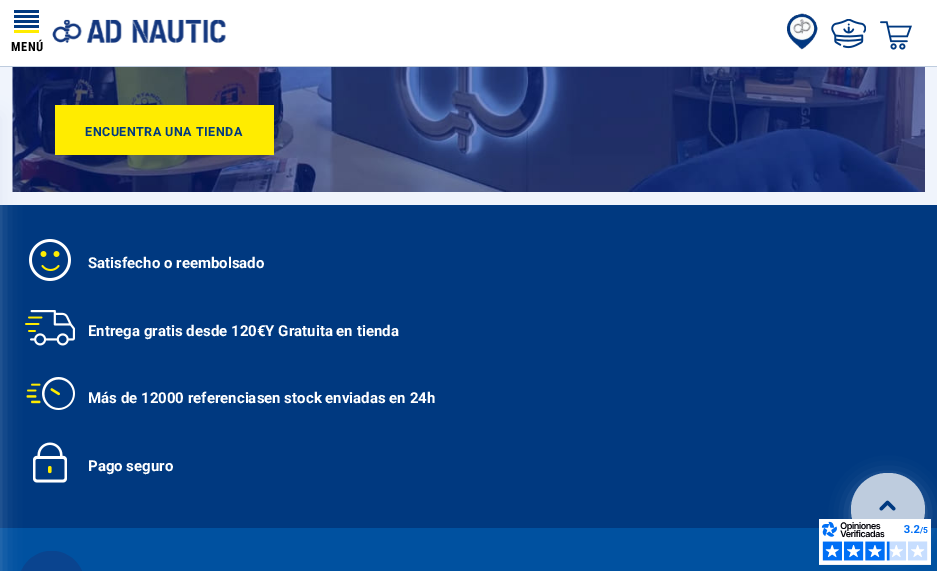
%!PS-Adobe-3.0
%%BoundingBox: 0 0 937 571
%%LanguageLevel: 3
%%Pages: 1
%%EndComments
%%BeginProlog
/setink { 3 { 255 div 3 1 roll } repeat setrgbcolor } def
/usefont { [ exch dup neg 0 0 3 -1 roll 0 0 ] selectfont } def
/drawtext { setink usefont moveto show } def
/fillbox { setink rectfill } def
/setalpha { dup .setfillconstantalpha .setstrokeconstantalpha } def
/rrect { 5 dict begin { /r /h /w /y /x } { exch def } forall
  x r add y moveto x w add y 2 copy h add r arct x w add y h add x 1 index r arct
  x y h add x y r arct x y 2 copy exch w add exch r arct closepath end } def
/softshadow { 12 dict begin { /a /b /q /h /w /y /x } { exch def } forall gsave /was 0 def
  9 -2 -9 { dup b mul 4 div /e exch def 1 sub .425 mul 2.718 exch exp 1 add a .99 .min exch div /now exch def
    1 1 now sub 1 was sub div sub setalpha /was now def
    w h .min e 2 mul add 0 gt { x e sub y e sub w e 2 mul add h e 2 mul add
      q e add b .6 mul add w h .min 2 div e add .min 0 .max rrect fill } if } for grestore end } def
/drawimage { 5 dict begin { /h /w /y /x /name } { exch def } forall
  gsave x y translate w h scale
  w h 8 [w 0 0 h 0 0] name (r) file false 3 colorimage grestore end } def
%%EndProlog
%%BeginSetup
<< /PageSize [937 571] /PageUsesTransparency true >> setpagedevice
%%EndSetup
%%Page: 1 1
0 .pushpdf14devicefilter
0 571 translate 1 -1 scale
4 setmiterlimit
0 0 937 571 240 244 252 fillbox
0 66 937 1 190 204 222 fillbox
0 0 937 66 255 255 255 fillbox
(assets/img1.rgb) 52 19 174 24 drawimage
(assets/img2.rgb) 786 13 32 37 drawimage
(assets/img3.rgb) 831 19 35 30 drawimage
(assets/img4.rgb) 880 21 32 29 drawimage
14 10 25 3 0 57 128 fillbox
14 15 25 3 0 57 128 fillbox
14 20 25 3 0 57 128 fillbox
14 25 25 3 0 57 128 fillbox
14 30 25 3 255 236 0 fillbox
/RobotoCondensed-Bold 12.5 usefont
0 0 0 setink
11 51 moveto 0.5 0 (MENÚ) ashow
(assets/img5.rgb) 12 67 913 125 drawimage
0 205 937 323 0 57 128 fillbox
(assets/img6.rgb) 29 239 42 42 drawimage
(assets/img7.rgb) 25 310 50 36 drawimage
(assets/img8.rgb) 26 377 49 33 drawimage
0 528 937 43 0 81 160 fillbox
(assets/img10.rgb) 21 551 61 20 drawimage
190 204 222 setink
-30 116 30 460 0 10 0.34 softshadow
55 105 219 50 255 236 0 fillbox
/Roboto-Bold 12.5 usefont
0 57 128 setink
85 136 moveto 0.5 0 (ENCUENTRA UNA TIENDA) ashow
(Satisfecho o reembolsado) 88 268 /Roboto-Bold 15 255 255 255 drawtext
(Entrega gratis desde 120€Y Gratuita en tienda) 88 336 /Roboto-Bold 15 255 255 255 drawtext
(Más de 12000 referenciasen stock enviadas en 24h) 88 403 /Roboto-Bold 15 255 255 255 drawtext
(assets/img9.rgb) 33 442 34 41 drawimage
(Pago seguro) 88 471 /Roboto-Bold 15 255 255 255 drawtext
190 204 222 setink
851 478 74 73 36.5 10 0.34 softshadow
851 473 74 73 36.5 rrect fill
(assets/img11.rgb) 879 500 17 11 drawimage
(assets/img12.rgb) 819 519 112 46 drawimage
.poppdf14devicefilter showpage
%%EOF
